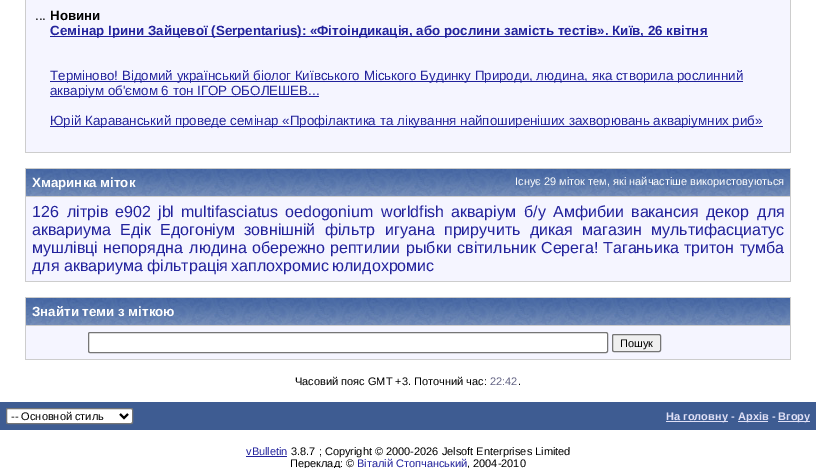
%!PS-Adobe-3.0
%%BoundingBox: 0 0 816 468
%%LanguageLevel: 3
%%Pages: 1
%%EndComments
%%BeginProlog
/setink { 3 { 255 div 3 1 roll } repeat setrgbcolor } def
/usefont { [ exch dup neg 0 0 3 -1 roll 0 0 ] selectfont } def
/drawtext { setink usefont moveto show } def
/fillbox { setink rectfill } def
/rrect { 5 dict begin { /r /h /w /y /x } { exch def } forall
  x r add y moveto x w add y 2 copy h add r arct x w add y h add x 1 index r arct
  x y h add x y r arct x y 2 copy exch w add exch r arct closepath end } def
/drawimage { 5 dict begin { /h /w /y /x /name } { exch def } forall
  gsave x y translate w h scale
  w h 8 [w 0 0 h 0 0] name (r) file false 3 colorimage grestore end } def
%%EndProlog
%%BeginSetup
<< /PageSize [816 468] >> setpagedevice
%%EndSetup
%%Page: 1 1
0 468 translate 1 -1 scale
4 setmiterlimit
0 0 816 468 255 255 255 fillbox
25 0 766 153 205 205 205 fillbox
26 0 764 152 245 245 255 fillbox
(...) 35 20 /LiberationSans-Regular 13.33 0 0 0 drawtext
(Новини) 50 20 /LiberationSans-Bold 13.33 0 0 0 drawtext
50 36 658 1 34 34 156 fillbox
(Семінар Ірини Зайцевої \(Serpentarius\): «Фітоіндикація, або рослини замість тестів». Київ, 26 квітня) 50 35 /LiberationSans-Bold 13.33 34 34 156 drawtext
50 81 693 1 34 34 156 fillbox
(Терміново! Відомий український біолог Київського Міського Будинку Природи, людина, яка створила рослинний) 50 80 /LiberationSans-Regular 13.33 34 34 156 drawtext
50 96 269 1 34 34 156 fillbox
(акваріум об'ємом 6 тон ІГОР ОБОЛЕШЕВ...) 50 95 /LiberationSans-Regular 13.33 34 34 156 drawtext
50 126 713 1 34 34 156 fillbox
(Юрій Караванський проведе семінар «Профілактика та лікування найпоширеніших захворювань акваріумних риб») 50 125 /LiberationSans-Regular 13.33 34 34 156 drawtext
25 168 766 114 205 205 205 fillbox
(assets/img1.rgb) 26 169 764 27 drawimage
(Хмаринка міток) 32 187 /LiberationSans-Bold 13.33 255 255 255 drawtext
(Існує 29 міток тем, які найчастіше використовуються) 515 185 /LiberationSans-Regular 11 255 255 255 drawtext
26 197 764 84 245 245 255 fillbox
/LiberationSans-Regular 16 usefont
34 34 156 setink
32 217 moveto 4 0 32 (126 літрів) widthshow
(e902) 115 217 /LiberationSans-Regular 16 34 34 156 drawtext
(jbl) 158 217 /LiberationSans-Regular 16 34 34 156 drawtext
(multifasciatus) 181 217 /LiberationSans-Regular 16 34 34 156 drawtext
(oedogonium) 285 217 /LiberationSans-Regular 16 34 34 156 drawtext
(worldfish) 381 217 /LiberationSans-Regular 16 34 34 156 drawtext
451 217 moveto 4 0 32 (акваріум б/у) widthshow
(Амфибии) 553 217 /LiberationSans-Regular 16 34 34 156 drawtext
(вакансия) 631 217 /LiberationSans-Regular 16 34 34 156 drawtext
706 217 moveto 4 0 32 (декор для) widthshow
(аквариума) 32 235 /LiberationSans-Regular 16 34 34 156 drawtext
(Едік) 120 235 /LiberationSans-Regular 16 34 34 156 drawtext
(Едогоніум) 160 235 /LiberationSans-Regular 16 34 34 156 drawtext
244 235 moveto 5 0 32 (зовнішній фільтр) widthshow
385 235 moveto 5 0 32 (игуана приручить дикая) widthshow
(магазин) 582 235 /LiberationSans-Regular 16 34 34 156 drawtext
(мультифасциатус) 651 235 /LiberationSans-Regular 16 34 34 156 drawtext
(мушлівці) 32 253 /LiberationSans-Regular 16 34 34 156 drawtext
103 253 moveto 2 0 32 (непорядна людина) widthshow
(обережно) 252 253 /LiberationSans-Regular 16 34 34 156 drawtext
(рептилии) 330 253 /LiberationSans-Regular 16 34 34 156 drawtext
(рыбки) 406 253 /LiberationSans-Regular 16 34 34 156 drawtext
(світильник) 457 253 /LiberationSans-Regular 16 34 34 156 drawtext
(Серега!) 541 253 /LiberationSans-Regular 16 34 34 156 drawtext
(Таганьика) 603 253 /LiberationSans-Regular 16 34 34 156 drawtext
(тритон) 684 253 /LiberationSans-Regular 16 34 34 156 drawtext
(тумба) 740 253 /LiberationSans-Regular 16 34 34 156 drawtext
(для аквариума) 32 271 /LiberationSans-Regular 16 34 34 156 drawtext
(фільтрація) 147 271 /LiberationSans-Regular 16 34 34 156 drawtext
(хаплохромис) 231 271 /LiberationSans-Regular 16 34 34 156 drawtext
(юлидохромис) 332 271 /LiberationSans-Regular 16 34 34 156 drawtext
25 297 766 63 205 205 205 fillbox
(assets/img1.rgb) 26 298 764 27 drawimage
(Знайти теми з міткою) 32 316 /LiberationSans-Bold 13.33 255 255 255 drawtext
26 326 764 33 245 245 255 fillbox
255 255 255 setink
88.5 332.5 519 20 1.5 rrect gsave fill grestore
118 118 118 setink
stroke
239 239 239 setink
612.5 334.5 48 17 1.5 rrect gsave fill grestore
118 118 118 setink
stroke
(Пошук) 620 347 /LiberationSans-Regular 11 0 0 0 drawtext
(Часовий пояс GMT +3. Поточний час:) 295 385 /LiberationSans-Regular 11 0 0 0 drawtext
(22:42) 490 385 /LiberationSans-Regular 11 102 102 134 drawtext
(.) 518 385 /LiberationSans-Regular 11 0 0 0 drawtext
0 402 816 28 62 92 146 fillbox
255 255 255 setink
6.5 408.5 126 15 1.5 rrect gsave fill grestore
118 118 118 setink
stroke
0 0 0 setink
2 setlinewidth
120 414 moveto 124 418 lineto 128 414 lineto stroke
(-- Основной стиль) 11 420 /LiberationSans-Regular 11 0 0 0 drawtext
666 421 62 1 224 224 246 fillbox
(На головну -) 666 420 /LiberationSans-Bold 11 224 224 246 drawtext
738 421 30 1 224 224 246 fillbox
(Архів -) 738 420 /LiberationSans-Bold 11 224 224 246 drawtext
778 421 32 1 224 224 246 fillbox
(Вгору) 778 420 /LiberationSans-Bold 11 224 224 246 drawtext
(vBulletin) 246 455 /LiberationSans-Regular 11 34 34 156 drawtext
246 456 41 1 34 34 156 fillbox
(3.8.7 ; Copyright © 2000-2026 Jelsoft Enterprises Limited) 291 455 /LiberationSans-Regular 11 0 0 0 drawtext
(Переклад: ©) 290 467 /LiberationSans-Regular 11 0 0 0 drawtext
(Віталій Стопчанський) 357 467 /LiberationSans-Regular 11 34 34 156 drawtext
(, 2004-2010) 467 467 /LiberationSans-Regular 11 0 0 0 drawtext
showpage
%%EOF
